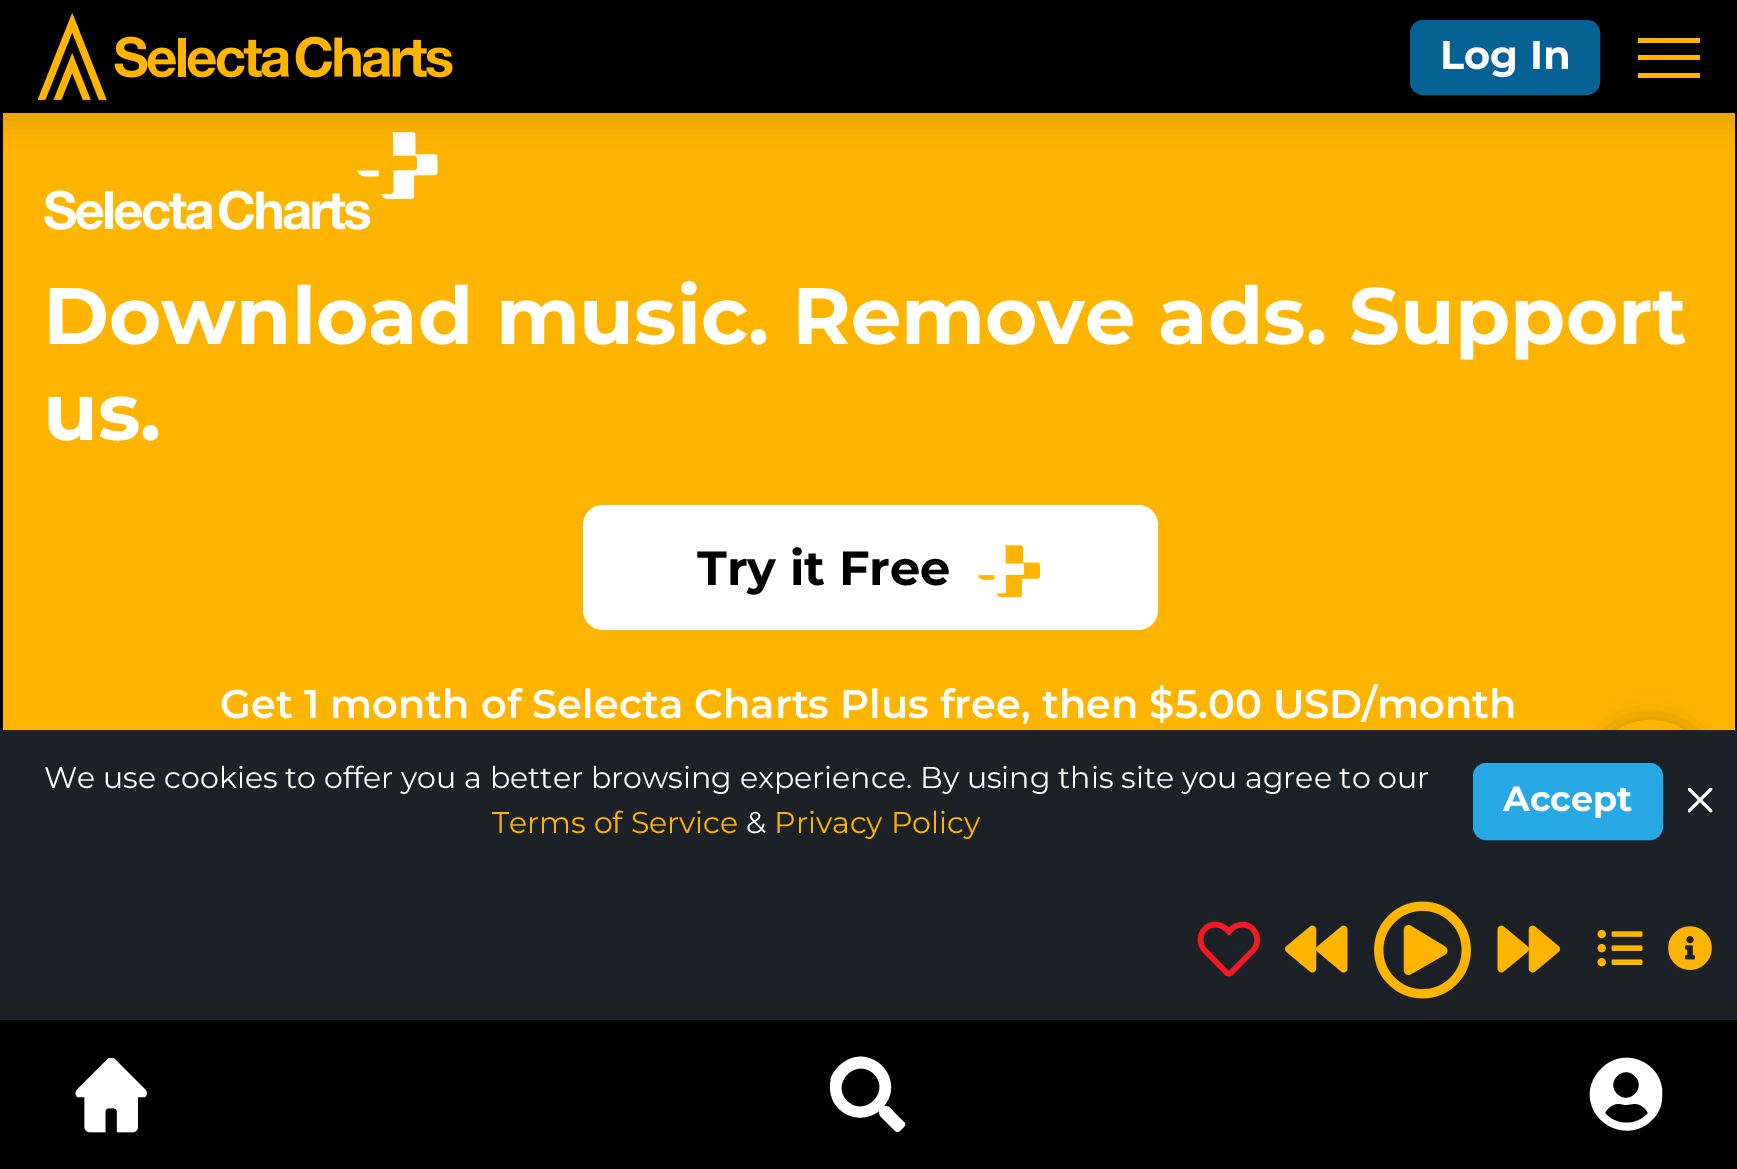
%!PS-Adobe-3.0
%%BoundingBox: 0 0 1737 1169
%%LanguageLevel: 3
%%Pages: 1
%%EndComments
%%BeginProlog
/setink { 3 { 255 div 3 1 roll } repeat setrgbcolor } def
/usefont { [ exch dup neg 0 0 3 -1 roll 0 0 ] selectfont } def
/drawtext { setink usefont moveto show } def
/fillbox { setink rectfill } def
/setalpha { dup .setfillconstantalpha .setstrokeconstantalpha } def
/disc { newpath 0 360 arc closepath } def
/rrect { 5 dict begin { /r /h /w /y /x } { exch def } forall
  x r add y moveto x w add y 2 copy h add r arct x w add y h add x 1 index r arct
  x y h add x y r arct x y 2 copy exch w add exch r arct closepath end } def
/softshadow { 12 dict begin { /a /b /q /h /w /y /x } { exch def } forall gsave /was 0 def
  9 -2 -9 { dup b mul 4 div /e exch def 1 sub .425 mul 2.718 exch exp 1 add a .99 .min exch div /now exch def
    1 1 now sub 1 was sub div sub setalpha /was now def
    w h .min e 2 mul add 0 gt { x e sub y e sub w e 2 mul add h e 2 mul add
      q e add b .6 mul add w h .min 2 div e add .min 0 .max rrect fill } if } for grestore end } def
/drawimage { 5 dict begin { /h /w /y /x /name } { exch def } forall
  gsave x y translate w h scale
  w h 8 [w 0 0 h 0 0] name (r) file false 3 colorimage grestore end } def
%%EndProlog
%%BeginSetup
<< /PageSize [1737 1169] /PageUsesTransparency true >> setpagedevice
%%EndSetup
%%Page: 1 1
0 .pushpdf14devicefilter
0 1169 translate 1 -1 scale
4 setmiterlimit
0 0 1737 1169 0 0 0 fillbox
3 113 1732 617 255 180 0 fillbox
(assets/img2.rgb) 44 132 394 98 drawimage
gsave
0 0 moveto 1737 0 lineto 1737 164 lineto 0 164 lineto closepath 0 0 moveto 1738 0 lineto 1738 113 lineto 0 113 lineto closepath eoclip newpath
0 0 0 setink
0 13 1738 112 0 12.5 0.1 softshadow
grestore
(assets/img1.rgb) 38 13 415 87 drawimage
6 97 149 setink
1412.5 22.5 185 70 10.5 rrect gsave fill grestore
5 setlinewidth
stroke
(Log In) 1440 69 /Montserrat-Bold 40 255 255 255 drawtext
1638 38 62 5 255 180 0 fillbox
1638 55 62 5 255 180 0 fillbox
1638 73 62 5 255 180 0 fillbox
(Download music. Remove ads. Support) 43 344 /Montserrat-Bold 80 255 255 255 drawtext
(us.) 43 440 /Montserrat-Bold 80 255 255 255 drawtext
583 505 575 125 20 rrect fill
(Try it Free) 697 585 /Montserrat-Bold 48 0 0 0 drawtext
(assets/img3.rgb) 978 545 62 53 drawimage
(Get 1 month of Selecta Charts Plus free, then $5.00 USD/month) 220 718 /Montserrat-SemiBold 40 255 255 255 drawtext
0 870 1737 150 27 33 39 fillbox
0 0 0 setink
1588 720 125 125 62.5 12.5 0.2 softshadow
255 180 0 setink
1650.5 782.5 62.5 disc fill
(assets/img4.rgb) 75 1058 72 75 drawimage
255 255 255 setink
904 1122 moveto 907 1124 904 1127 902 1129 curveto 898 1133 897 1133 892 1128 curveto 883 1119 lineto 880 1116 879 1115 879 1111 curveto 865 1122 845 1119 835 1104 curveto 830 1097 829 1087 831 1078 curveto 833 1072 838 1066 844 1062 curveto 872 1043 906 1079 884 1106 curveto 890 1106 890 1108 894 1112 curveto closepath 847 1101 moveto 865 1118 891 1092 874 1074 curveto 856 1057 830 1083 847 1101 curveto closepath fill
1601 1069 moveto 1625 1044 1666 1064 1662 1098 curveto 1662 1106 1658 1114 1652 1120 curveto 1628 1144 1587 1124 1590 1091 curveto 1591 1082 1595 1075 1601 1069 curveto closepath 1635 1076 moveto 1623 1064 1605 1082 1617 1094 curveto 1629 1106 1647 1088 1635 1076 curveto closepath 1605 1113 moveto 1616 1126 1637 1126 1648 1113 curveto 1645 1107 1639 1103 1633 1104 curveto 1626 1105 lineto 1620 1104 lineto 1614 1103 1608 1107 1605 1113 curveto closepath fill
0 730 1737 140 27 33 39 fillbox
(We use cookies to offer you a better browsing experience. By using this site you agree to our) 44 788 /Montserrat-Regular 30 255 255 255 drawtext
(Terms of Service) 492 833 /Montserrat-Regular 30 255 180 0 drawtext
(&) 746 833 /Montserrat-Regular 30 255 255 255 drawtext
(Privacy Policy) 774 833 /Montserrat-Regular 30 255 180 0 drawtext
40 169 229 setink
1475.5 765.5 185 72 10.5 rrect gsave fill grestore
stroke
(Accept) 1503 811 /Montserrat-Bold 35 255 255 255 drawtext
(assets/img5.rgb) 1688 788 25 25 drawimage
(assets/img6.rgb) 1197 921 64 56 drawimage
(assets/img7.rgb) 1285 925 63 48 drawimage
(assets/img8.rgb) 1374 901 97 98 drawimage
(assets/img9.rgb) 1497 925 63 48 drawimage
(assets/img10.rgb) 1597 929 46 38 drawimage
(assets/img11.rgb) 1668 926 44 44 drawimage
.poppdf14devicefilter showpage
%%EOF
